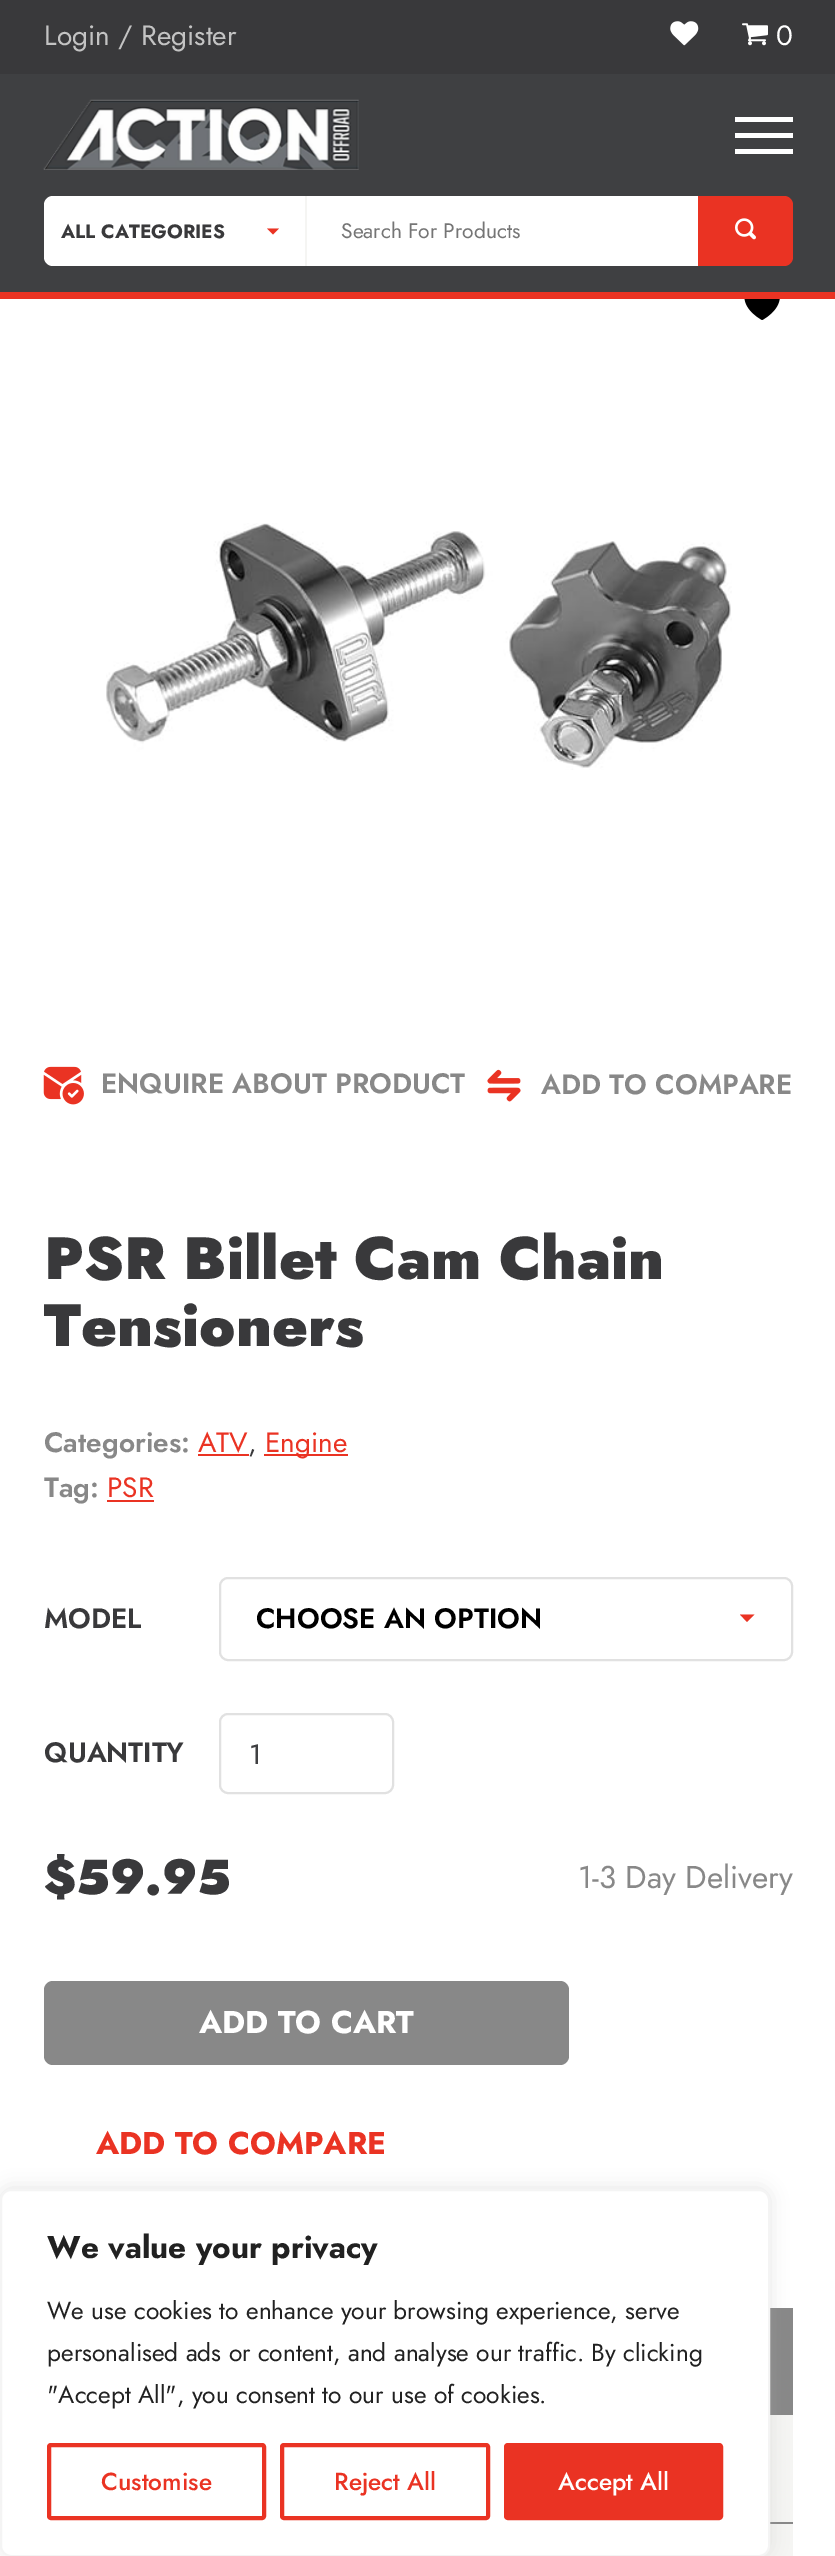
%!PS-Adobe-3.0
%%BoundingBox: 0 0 835 2556
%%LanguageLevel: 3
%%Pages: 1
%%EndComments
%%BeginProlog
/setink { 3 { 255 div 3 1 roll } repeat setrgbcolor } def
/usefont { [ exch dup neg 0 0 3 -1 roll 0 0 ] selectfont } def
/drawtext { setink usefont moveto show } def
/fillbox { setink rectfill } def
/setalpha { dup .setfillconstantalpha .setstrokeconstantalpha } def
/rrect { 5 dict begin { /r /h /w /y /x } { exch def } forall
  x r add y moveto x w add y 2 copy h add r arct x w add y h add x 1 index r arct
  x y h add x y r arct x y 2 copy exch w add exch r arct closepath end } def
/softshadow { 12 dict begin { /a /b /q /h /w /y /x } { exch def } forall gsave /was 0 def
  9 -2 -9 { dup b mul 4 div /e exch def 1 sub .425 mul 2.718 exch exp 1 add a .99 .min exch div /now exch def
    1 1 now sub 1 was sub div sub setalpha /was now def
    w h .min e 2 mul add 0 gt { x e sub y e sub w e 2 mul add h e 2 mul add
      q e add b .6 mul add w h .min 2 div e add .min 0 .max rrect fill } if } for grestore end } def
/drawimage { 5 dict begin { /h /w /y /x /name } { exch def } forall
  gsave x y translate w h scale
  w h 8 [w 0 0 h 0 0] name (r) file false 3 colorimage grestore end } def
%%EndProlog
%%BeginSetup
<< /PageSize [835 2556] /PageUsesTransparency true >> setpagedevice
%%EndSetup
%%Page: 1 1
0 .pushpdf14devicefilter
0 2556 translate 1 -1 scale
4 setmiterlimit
0 0 835 2556 255 255 255 fillbox
0 0 835 74 57 57 59 fillbox
(Login / Register) 44 45 /Jost-Regular 28 195 195 195 drawtext
(assets/img1.rgb) 670 21 29 25 drawimage
(assets/img2.rgb) 742 23 26 23 drawimage
(0) 776 45 /Jost-Regular 28 255 255 255 drawtext
0 74 835 218 63 64 66 fillbox
(assets/img3.rgb) 43 99 316 71 drawimage
735 133 58 5 255 255 255 fillbox
735 117 58 5 255 255 255 fillbox
735 149 58 5 255 255 255 fillbox
53 196 moveto 306 196 lineto 306 266 lineto 53 266 lineto 48 266 44 262 44 257 curveto 44 205 lineto 44 200 48 196 53 196 curveto closepath fill
305 196 2 70 245 245 243 fillbox
(ALL CATEGORIES) 61 238 /Jost-Bold 19.25 57 57 59 drawtext
234 51 35 setink
267 228.5 moveto 279 228.5 lineto 273 234.5 lineto closepath fill
307 196 391 70 255 255 255 fillbox
(Search For Products) 341 238 /Jost-Regular 21 117 117 117 drawtext
234 51 35 setink
698 196 moveto 784 196 lineto 789 196 793 200 793 205 curveto 793 257 lineto 793 262 789 266 784 266 curveto 698 266 lineto closepath fill
(assets/img4.rgb) 735 218 21 22 drawimage
0 292 835 7 234 51 35 fillbox
(assets/img5.rgb) 744 299 36 21 drawimage
(assets/img6.rgb) 106 523 626 247 drawimage
(assets/img7.rgb) 43 1066 41 39 drawimage
(ENQUIRE ABOUT PRODUCT) 101 1093 /Jost-SemiBold 28 136 136 136 drawtext
(assets/img8.rgb) 487 1069 34 33 drawimage
(ADD TO COMPARE) 541 1094 /Jost-SemiBold 28 136 136 136 drawtext
(PSR Billet Cam Chain) 44 1279 /Jost-Black 59.5 57 57 59 drawtext
(Tensioners) 44 1346 /Jost-Black 59.5 57 57 59 drawtext
(Categories:) 44 1452 /Jost-SemiBold 28 136 136 136 drawtext
(ATV) 198 1452 /Jost-Regular 28 234 51 35 drawtext
198 1454 51 2 234 51 35 fillbox
(,) 248 1452 /Jost-Regular 28 57 57 59 drawtext
264 1454 84 2 234 51 35 fillbox
(Engine) 265 1452 /Jost-Regular 28 234 51 35 drawtext
(Tag:) 44 1497 /Jost-SemiBold 28 136 136 136 drawtext
(PSR) 107 1497 /Jost-Regular 28 234 51 35 drawtext
107 1500 47 2 234 51 35 fillbox
(MODEL) 44 1628 /Jost-SemiBold 28 57 57 59 drawtext
225 225 225 setink
2 setlinewidth
220 1578 572 82 8 rrect stroke
(CHOOSE AN OPTION) 256 1628 /Jost-SemiBold 28 0 0 0 drawtext
234 51 35 setink
740 1614.5 moveto 754.5 1614.5 lineto 747 1622 lineto closepath fill
(QUANTITY) 44 1762 /Jost-SemiBold 28 57 57 59 drawtext
225 225 225 setink
220 1714 173 79 8 rrect stroke
(1) 249 1764 /Jost-Regular 28 63 64 66 drawtext
($59.95) 44 1894 /Jost-Black 49 57 57 59 drawtext
(1-3 Day Delivery) 578 1888 /Jost-Regular 31.5 136 136 136 drawtext
44 1981 525 84 9 rrect fill
(ADD TO CART) 199 2033 /Jost-Bold 31.5 255 255 255 drawtext
(ADD TO COMPARE) 96 2154 /Jost-Bold 31.5 234 51 35 drawtext
770 2308 23 107 136 136 136 fillbox
770 2415 23 107 245 245 243 fillbox
770 2522 23 2 136 136 136 fillbox
763 2524 30 32 245 245 243 fillbox
172 171 171 setink
0 2188 770 367 11 9 0.3 softshadow
255 255 255 setink
1 2190 768 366 10 rrect gsave fill grestore
244 244 244 setink
stroke
(We value your privacy) 47 2258 /Jost-Bold 31.5 33 33 33 drawtext
(We use cookies to enhance your browsing experience, serve) 47 2319 /Jost-Regular 24.5 33 33 33 drawtext
(personalised ads or content, and analyse our traffic. By clicking) 47 2361 /Jost-Regular 24.5 33 33 33 drawtext
("Accept All", you consent to our use of cookies.) 47 2403 /Jost-Regular 24.5 33 33 33 drawtext
234 51 35 setink
4 setlinewidth
49 2445 215 73 2 rrect stroke
(Customise) 101 2490 /Jost-Medium 24.5 234 51 35 drawtext
282 2445 206 73 2 rrect stroke
(Reject All) 334 2490 /Jost-Medium 24.5 234 51 35 drawtext
506 2445 215 73 2 rrect gsave fill grestore
stroke
(Accept All) 558 2490 /Jost-Medium 24.5 255 255 255 drawtext
.poppdf14devicefilter showpage
%%EOF
